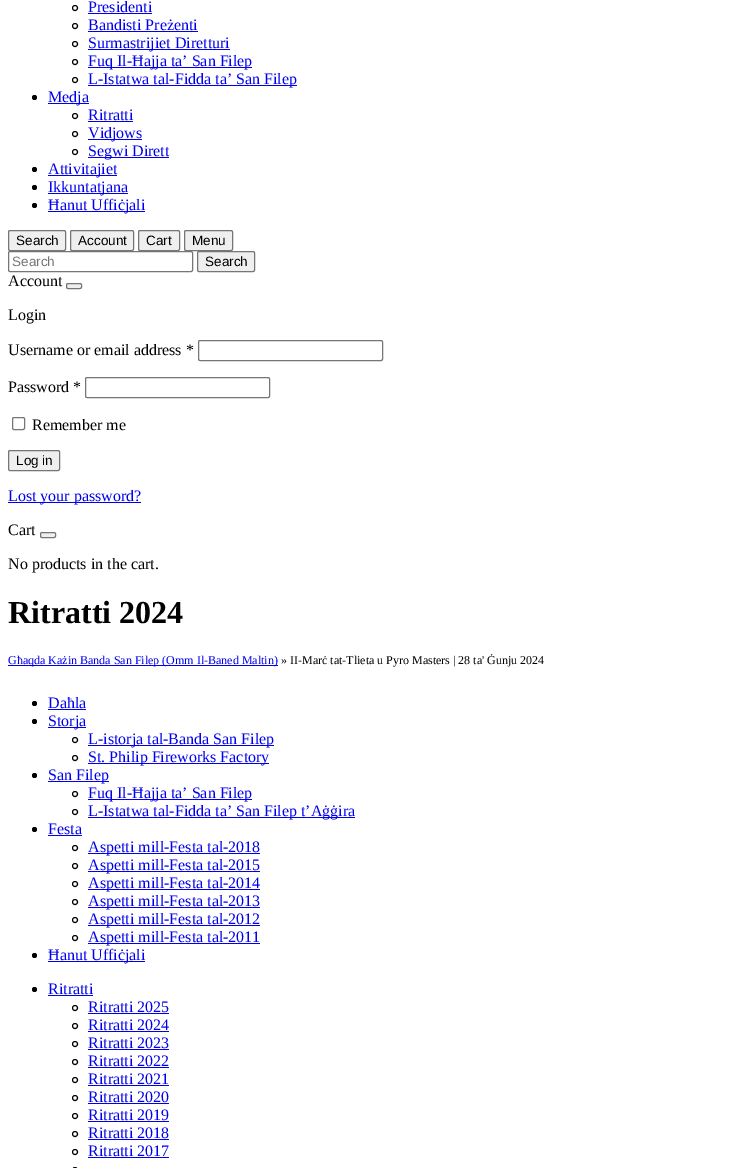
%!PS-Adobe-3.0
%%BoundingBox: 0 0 740 1168
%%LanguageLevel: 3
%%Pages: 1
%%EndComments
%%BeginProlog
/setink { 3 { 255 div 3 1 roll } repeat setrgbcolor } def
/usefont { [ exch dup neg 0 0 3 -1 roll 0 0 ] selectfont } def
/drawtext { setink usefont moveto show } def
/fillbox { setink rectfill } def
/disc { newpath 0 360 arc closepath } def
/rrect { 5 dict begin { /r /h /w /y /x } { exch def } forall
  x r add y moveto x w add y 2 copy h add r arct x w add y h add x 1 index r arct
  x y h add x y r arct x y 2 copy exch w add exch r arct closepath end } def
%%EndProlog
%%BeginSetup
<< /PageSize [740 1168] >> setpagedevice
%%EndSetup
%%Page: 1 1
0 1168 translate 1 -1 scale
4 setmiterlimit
0 0 740 1168 255 255 255 fillbox
0 0 0 setink
75 8 2.5 disc stroke
(Presidenti) 88 12 /LiberationSerif-Regular 16 0 0 238 drawtext
88 13 64 1 0 0 238 fillbox
0 0 0 setink
75 26 2.5 disc stroke
(Bandisti Preżenti) 88 30 /LiberationSerif-Regular 16 0 0 238 drawtext
88 31 110 1 0 0 238 fillbox
0 0 0 setink
75 44 2.5 disc stroke
88 49 142 1 0 0 238 fillbox
(Surmastrijiet Diretturi) 88 48 /LiberationSerif-Regular 16 0 0 238 drawtext
0 0 0 setink
75 62 2.5 disc stroke
88 67 164 1 0 0 238 fillbox
(Fuq Il-Ħajja ta’ San Filep) 88 66 /LiberationSerif-Regular 16 0 0 238 drawtext
0 0 0 setink
75 80 2.5 disc stroke
88 85 209 1 0 0 238 fillbox
(L-Istatwa tal-Fidda ta’ San Filep) 88 84 /LiberationSerif-Regular 16 0 0 238 drawtext
0 0 0 setink
34.5 97.5 2.5 disc fill
48 103 41 1 0 0 238 fillbox
(Medja) 48 102 /LiberationSerif-Regular 16 0 0 238 drawtext
0 0 0 setink
75 116 2.5 disc stroke
(Ritratti) 88 120 /LiberationSerif-Regular 16 0 0 238 drawtext
88 121 45 1 0 0 238 fillbox
0 0 0 setink
75 134 2.5 disc stroke
88 139 54 1 0 0 238 fillbox
(Vidjows) 88 138 /LiberationSerif-Regular 16 0 0 238 drawtext
0 0 0 setink
75 152 2.5 disc stroke
88 157 81 1 0 0 238 fillbox
(Segwi Dirett) 88 156 /LiberationSerif-Regular 16 0 0 238 drawtext
0 0 0 setink
34.5 169.5 2.5 disc fill
48 175 69 1 0 0 238 fillbox
(Attivitajiet) 48 174 /LiberationSerif-Regular 16 0 0 238 drawtext
0 0 0 setink
34.5 187.5 2.5 disc fill
48 193 80 1 0 0 238 fillbox
(Ikkuntatjana) 48 192 /LiberationSerif-Regular 16 0 0 238 drawtext
0 0 0 setink
34.5 205.5 2.5 disc fill
48 211 97 1 0 0 238 fillbox
(Ħanut Uffiċjali) 48 210 /LiberationSerif-Regular 16 0 0 238 drawtext
239 239 239 setink
8.5 230.5 57 20 1.5 rrect gsave fill grestore
118 118 118 setink
stroke
(Search) 16 245 /LiberationSans-Regular 13.5 0 0 0 drawtext
239 239 239 setink
70.5 230.5 63 20 1.5 rrect gsave fill grestore
118 118 118 setink
stroke
(Account) 78 245 /LiberationSans-Regular 13.5 0 0 0 drawtext
239 239 239 setink
138.5 230.5 41 20 1.5 rrect gsave fill grestore
118 118 118 setink
stroke
(Cart) 146 245 /LiberationSans-Regular 13.5 0 0 0 drawtext
239 239 239 setink
184.5 230.5 48 20 1.5 rrect gsave fill grestore
118 118 118 setink
stroke
(Menu) 192 245 /LiberationSans-Regular 13.5 0 0 0 drawtext
118 118 118 setink
8.5 251.5 184 20 1.5 rrect stroke
(Search) 12 266 /LiberationSans-Regular 13.5 117 117 117 drawtext
239 239 239 setink
197.5 251.5 57 20 1.5 rrect gsave fill grestore
118 118 118 setink
stroke
(Search) 205 266 /LiberationSans-Regular 13.5 0 0 0 drawtext
(Account) 8 286 /LiberationSerif-Regular 16 0 0 0 drawtext
239 239 239 setink
66.5 283.5 15 5 1.5 rrect gsave fill grestore
118 118 118 setink
stroke
(Login) 8 320 /LiberationSerif-Regular 16 0 0 0 drawtext
(Username or email address *) 8 355 /LiberationSerif-Regular 16 0 0 0 drawtext
118 118 118 setink
198.5 340.5 184 20 1.5 rrect stroke
(Password *) 8 392 /LiberationSerif-Regular 16 0 0 0 drawtext
118 118 118 setink
85.5 377.5 184 20 1.5 rrect stroke
12.5 417.5 12 12 1.5 rrect stroke
(Remember me) 32 430 /LiberationSerif-Regular 16 0 0 0 drawtext
239 239 239 setink
8.5 450.5 51 20 1.5 rrect gsave fill grestore
118 118 118 setink
stroke
(Log in) 16 465 /LiberationSans-Regular 13.5 0 0 0 drawtext
8 502 133 1 0 0 238 fillbox
(Lost your password?) 8 501 /LiberationSerif-Regular 16 0 0 238 drawtext
(Cart) 8 535 /LiberationSerif-Regular 16 0 0 0 drawtext
239 239 239 setink
40.5 532.5 15 5 1.5 rrect gsave fill grestore
118 118 118 setink
stroke
(No products in the cart.) 8 569 /LiberationSerif-Regular 16 0 0 0 drawtext
(Ritratti 2024) 8 623 /LiberationSerif-Bold 32 0 0 0 drawtext
8 665 270 1 0 0 238 fillbox
(Għaqda Każin Banda San Filep \(Omm Il-Baned Maltin\)) 8 664 /LiberationSerif-Regular 12 0 0 238 drawtext
(» II-Marċ tat-Tlieta u Pyro Masters | 28 ta' Ġunju 2024) 281 664 /LiberationSerif-Regular 12 0 0 0 drawtext
34.5 703.5 2.5 disc fill
(Daħla) 48 708 /LiberationSerif-Regular 16 0 0 238 drawtext
48 709 38 1 0 0 238 fillbox
0 0 0 setink
34.5 721.5 2.5 disc fill
48 727 38 1 0 0 238 fillbox
(Storja) 48 726 /LiberationSerif-Regular 16 0 0 238 drawtext
0 0 0 setink
75 740 2.5 disc stroke
88 745 186 1 0 0 238 fillbox
(L-istorja tal-Banda San Filep) 88 744 /LiberationSerif-Regular 16 0 0 238 drawtext
0 0 0 setink
75 758 2.5 disc stroke
88 763 181 1 0 0 238 fillbox
(St. Philip Fireworks Factory) 88 762 /LiberationSerif-Regular 16 0 0 238 drawtext
0 0 0 setink
34.5 775.5 2.5 disc fill
48 781 61 1 0 0 238 fillbox
(San Filep) 48 780 /LiberationSerif-Regular 16 0 0 238 drawtext
0 0 0 setink
75 794 2.5 disc stroke
88 799 164 1 0 0 238 fillbox
(Fuq Il-Ħajja ta’ San Filep) 88 798 /LiberationSerif-Regular 16 0 0 238 drawtext
0 0 0 setink
75 812 2.5 disc stroke
88 817 267 1 0 0 238 fillbox
(L-Istatwa tal-Fidda ta’ San Filep t’Aġġira) 88 816 /LiberationSerif-Regular 16 0 0 238 drawtext
0 0 0 setink
34.5 829.5 2.5 disc fill
(Festa) 48 834 /LiberationSerif-Regular 16 0 0 238 drawtext
48 835 34 1 0 0 238 fillbox
0 0 0 setink
75 848 2.5 disc stroke
88 853 172 1 0 0 238 fillbox
(Aspetti mill-Festa tal-2018) 88 852 /LiberationSerif-Regular 16 0 0 238 drawtext
0 0 0 setink
75 866 2.5 disc stroke
88 871 172 1 0 0 238 fillbox
(Aspetti mill-Festa tal-2015) 88 870 /LiberationSerif-Regular 16 0 0 238 drawtext
0 0 0 setink
75 884 2.5 disc stroke
88 889 172 1 0 0 238 fillbox
(Aspetti mill-Festa tal-2014) 88 888 /LiberationSerif-Regular 16 0 0 238 drawtext
0 0 0 setink
75 902 2.5 disc stroke
88 907 172 1 0 0 238 fillbox
(Aspetti mill-Festa tal-2013) 88 906 /LiberationSerif-Regular 16 0 0 238 drawtext
0 0 0 setink
75 920 2.5 disc stroke
88 925 172 1 0 0 238 fillbox
(Aspetti mill-Festa tal-2012) 88 924 /LiberationSerif-Regular 16 0 0 238 drawtext
0 0 0 setink
75 938 2.5 disc stroke
88 943 172 1 0 0 238 fillbox
(Aspetti mill-Festa tal-2011) 88 942 /LiberationSerif-Regular 16 0 0 238 drawtext
0 0 0 setink
34.5 955.5 2.5 disc fill
48 961 97 1 0 0 238 fillbox
(Ħanut Uffiċjali) 48 960 /LiberationSerif-Regular 16 0 0 238 drawtext
0 0 0 setink
34.5 989.5 2.5 disc fill
(Ritratti) 48 994 /LiberationSerif-Regular 16 0 0 238 drawtext
48 995 45 1 0 0 238 fillbox
0 0 0 setink
75 1008 2.5 disc stroke
(Ritratti 2025) 88 1012 /LiberationSerif-Regular 16 0 0 238 drawtext
88 1013 81 1 0 0 238 fillbox
0 0 0 setink
75 1026 2.5 disc stroke
(Ritratti 2024) 88 1030 /LiberationSerif-Regular 16 0 0 238 drawtext
88 1031 81 1 0 0 238 fillbox
0 0 0 setink
75 1044 2.5 disc stroke
(Ritratti 2023) 88 1048 /LiberationSerif-Regular 16 0 0 238 drawtext
88 1049 81 1 0 0 238 fillbox
0 0 0 setink
75 1062 2.5 disc stroke
(Ritratti 2022) 88 1066 /LiberationSerif-Regular 16 0 0 238 drawtext
88 1067 81 1 0 0 238 fillbox
0 0 0 setink
75 1080 2.5 disc stroke
(Ritratti 2021) 88 1084 /LiberationSerif-Regular 16 0 0 238 drawtext
88 1085 81 1 0 0 238 fillbox
0 0 0 setink
75 1098 2.5 disc stroke
(Ritratti 2020) 88 1102 /LiberationSerif-Regular 16 0 0 238 drawtext
88 1103 81 1 0 0 238 fillbox
0 0 0 setink
75 1116 2.5 disc stroke
(Ritratti 2019) 88 1120 /LiberationSerif-Regular 16 0 0 238 drawtext
88 1121 81 1 0 0 238 fillbox
0 0 0 setink
75 1134 2.5 disc stroke
(Ritratti 2018) 88 1138 /LiberationSerif-Regular 16 0 0 238 drawtext
88 1139 81 1 0 0 238 fillbox
0 0 0 setink
75 1152 2.5 disc stroke
(Ritratti 2017) 88 1156 /LiberationSerif-Regular 16 0 0 238 drawtext
88 1157 81 1 0 0 238 fillbox
0 0 0 setink
72.5 1167.5 5 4 2.5 rrect stroke
showpage
%%EOF
